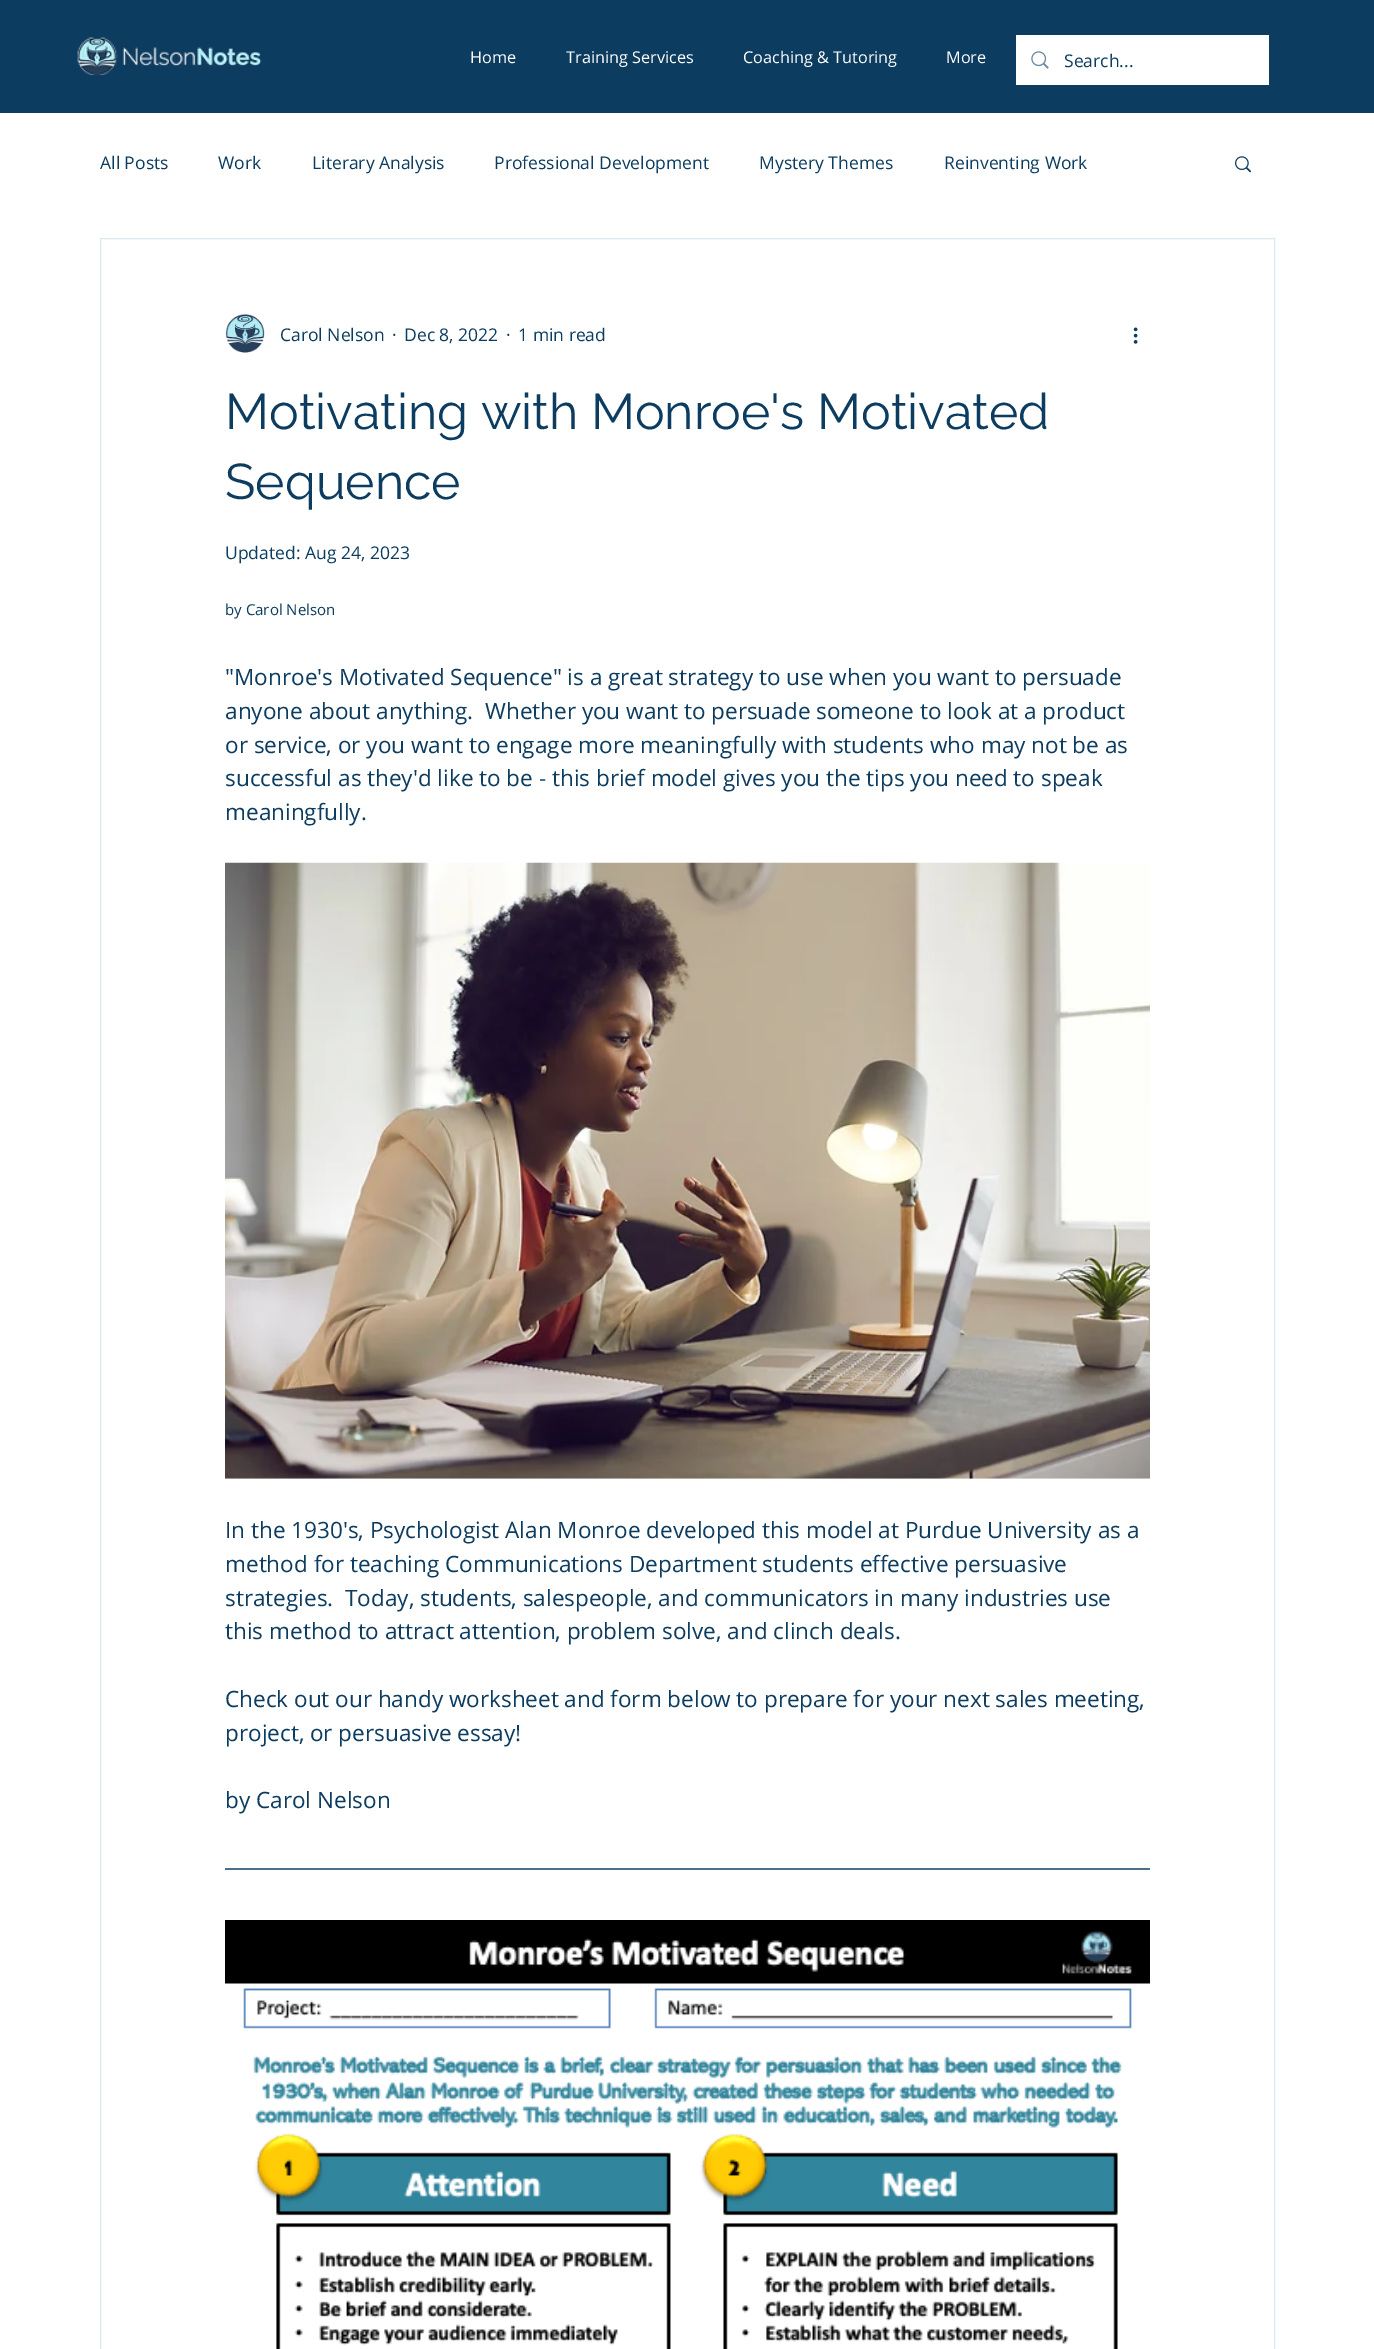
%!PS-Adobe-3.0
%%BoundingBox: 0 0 1374 2349
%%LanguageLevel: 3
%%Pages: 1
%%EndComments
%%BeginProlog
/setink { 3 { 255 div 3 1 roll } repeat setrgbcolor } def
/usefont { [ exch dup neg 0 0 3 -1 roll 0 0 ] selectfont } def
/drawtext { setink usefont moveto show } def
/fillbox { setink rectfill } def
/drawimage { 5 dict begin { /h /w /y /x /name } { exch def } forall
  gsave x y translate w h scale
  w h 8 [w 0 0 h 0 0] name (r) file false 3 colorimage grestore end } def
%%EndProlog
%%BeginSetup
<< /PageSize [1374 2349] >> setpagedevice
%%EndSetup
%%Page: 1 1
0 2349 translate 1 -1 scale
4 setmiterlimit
0 0 1374 2349 255 255 255 fillbox
0 0 1374 113 12 60 96 fillbox
(assets/img1.rgb) 77 37 185 38 drawimage
(Home) 470 63 /OpenSans-Regular 16.25 255 255 255 drawtext
(Training Services) 566 63 /OpenSans-Regular 16.25 255 255 255 drawtext
(Coaching & Tutoring) 743 63 /OpenSans-Regular 16.25 255 255 255 drawtext
(More) 946 63 /OpenSans-Regular 16.25 255 255 255 drawtext
1016 35 253 50 255 255 255 fillbox
(assets/img2.rgb) 1031 51 18 18 drawimage
(Search...) 1064 67 /OpenSans-Regular 17.5 12 60 96 drawtext
(All Posts) 100 169 /OpenSans-Regular 17.5 12 60 96 drawtext
(Work) 218 169 /OpenSans-Regular 17.5 12 60 96 drawtext
(Literary Analysis) 312 169 /OpenSans-Regular 17.5 12 60 96 drawtext
(Professional Development) 494 169 /OpenSans-Regular 17.5 12 60 96 drawtext
(Mystery Themes) 759 169 /OpenSans-Regular 17.5 12 60 96 drawtext
(Reinventing Work) 944 169 /OpenSans-Regular 17.5 12 60 96 drawtext
(assets/img3.rgb) 1235 156 17 17 drawimage
221 232 240 setink
100.5 238.5 1174 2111 rectstroke
(assets/img4.rgb) 225 314 40 39 drawimage
(Carol Nelson) 280 341 /OpenSans-Regular 17.5 12 60 96 drawtext
(·) 392 341 /OpenSans-Regular 17.5 12 60 96 drawtext
(Dec 8, 2022) 404 341 /OpenSans-Regular 17.5 12 60 96 drawtext
(·) 506 341 /OpenSans-Regular 17.5 12 60 96 drawtext
(1 min read) 518 341 /OpenSans-Regular 17.5 12 60 96 drawtext
(assets/img5.rgb) 1133 327 5 17 drawimage
(Motivating with Monroe's Motivated) 225 429 /Raleway-Regular 50 12 60 96 drawtext
(Sequence) 225 499 /Raleway-Regular 50 12 60 96 drawtext
(Updated: Aug 24, 2023) 225 559 /OpenSans-Regular 17.5 12 60 96 drawtext
(by Carol Nelson) 225 615 /OpenSans-Regular 15 12 60 96 drawtext
("Monroe's Motivated Sequence" is a great strategy to use when you want to persuade) 225 685 /OpenSans-Regular 22.5 12 60 96 drawtext
(anyone about anything.  Whether you want to persuade someone to look at a product) 225 719 /OpenSans-Regular 22.5 12 60 96 drawtext
(or service, or you want to engage more meaningfully with students who may not be as) 225 753 /OpenSans-Regular 22.5 12 60 96 drawtext
(successful as they'd like to be - this brief model gives you the tips you need to speak) 225 786 /OpenSans-Regular 22.5 12 60 96 drawtext
(meaningfully.) 225 820 /OpenSans-Regular 22.5 12 60 96 drawtext
(assets/img6.rgb) 225 862 925 617 drawimage
(In the 1930's, Psychologist Alan Monroe developed this model at Purdue University as a) 225 1538 /OpenSans-Regular 22.5 12 60 96 drawtext
(method for teaching Communications Department students effective persuasive) 225 1572 /OpenSans-Regular 22.5 12 60 96 drawtext
(strategies.  Today, students, salespeople, and communicators in many industries use) 225 1606 /OpenSans-Regular 22.5 12 60 96 drawtext
(this method to attract attention, problem solve, and clinch deals.) 225 1639 /OpenSans-Regular 22.5 12 60 96 drawtext
(Check out our handy worksheet and form below to prepare for your next sales meeting,) 225 1707 /OpenSans-Regular 22.5 12 60 96 drawtext
(project, or persuasive essay!) 225 1741 /OpenSans-Regular 22.5 12 60 96 drawtext
(by Carol Nelson) 225 1808 /OpenSans-Regular 22.5 12 60 96 drawtext
1.2 setlinewidth
225 1869 moveto 1150 1869 lineto stroke
(assets/img7.rgb) 225 1920 925 429 drawimage
showpage
%%EOF
